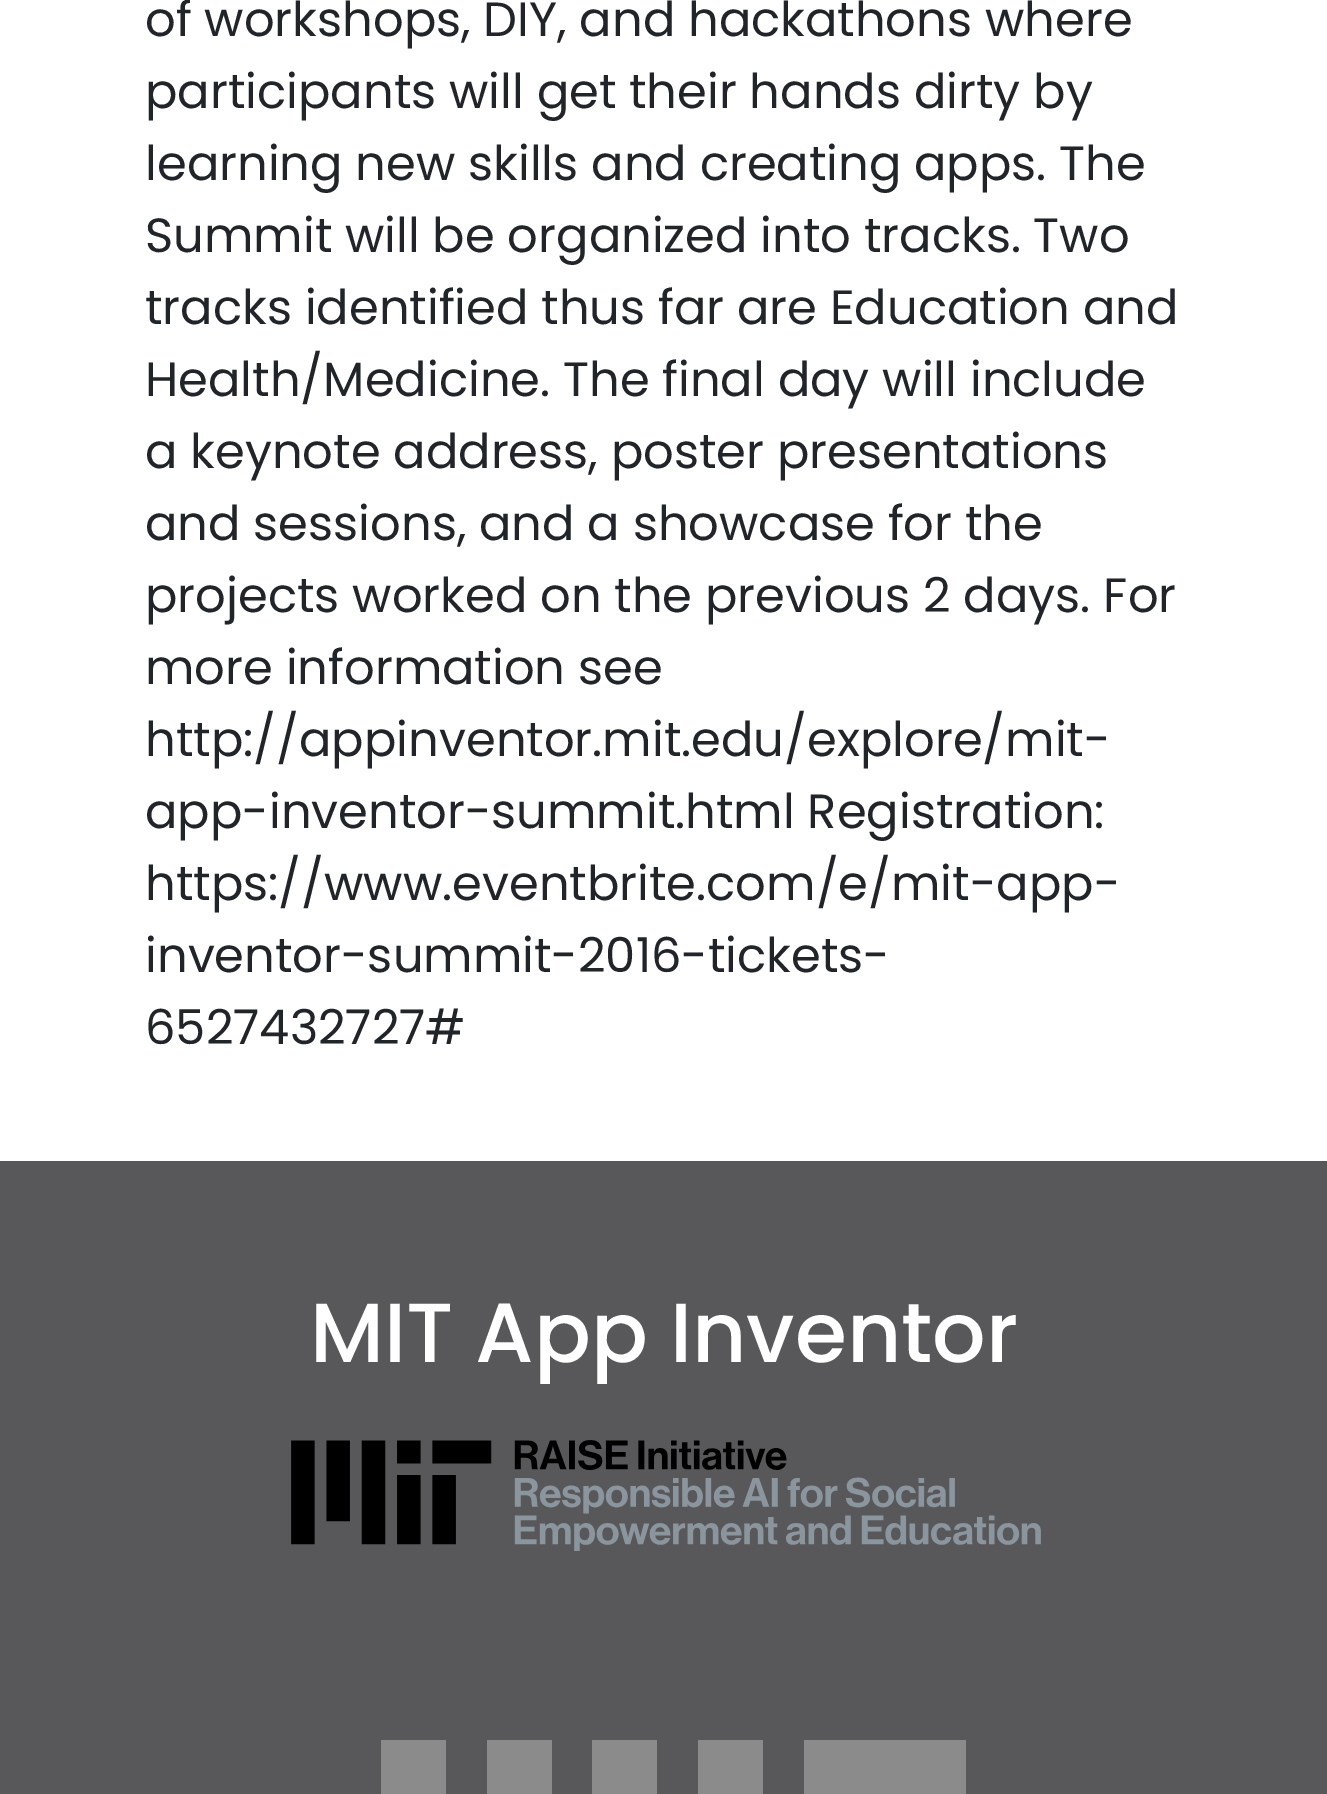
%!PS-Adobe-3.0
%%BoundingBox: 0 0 1327 1794
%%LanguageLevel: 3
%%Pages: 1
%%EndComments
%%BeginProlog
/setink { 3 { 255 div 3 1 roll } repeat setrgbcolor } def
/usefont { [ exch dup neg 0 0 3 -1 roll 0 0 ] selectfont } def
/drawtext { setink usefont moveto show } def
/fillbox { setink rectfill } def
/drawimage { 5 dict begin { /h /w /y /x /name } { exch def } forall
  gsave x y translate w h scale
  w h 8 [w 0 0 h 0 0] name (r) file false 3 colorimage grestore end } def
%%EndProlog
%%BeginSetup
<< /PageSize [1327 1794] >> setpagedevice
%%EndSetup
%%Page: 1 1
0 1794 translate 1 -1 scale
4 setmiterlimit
0 0 1327 1794 255 255 255 fillbox
(of workshops, DIY, and hackathons where) 145 36 /Poppins-Regular 48 33 37 41 drawtext
(participants will get their hands dirty by) 145 108 /Poppins-Regular 48 33 37 41 drawtext
(learning new skills and creating apps. The) 145 180 /Poppins-Regular 48 33 37 41 drawtext
(Summit will be organized into tracks. Two) 145 252 /Poppins-Regular 48 33 37 41 drawtext
(tracks identified thus far are Education and) 145 324 /Poppins-Regular 48 33 37 41 drawtext
(Health/Medicine. The final day will include) 145 396 /Poppins-Regular 48 33 37 41 drawtext
(a keynote address, poster presentations) 145 468 /Poppins-Regular 48 33 37 41 drawtext
(and sessions, and a showcase for the) 145 540 /Poppins-Regular 48 33 37 41 drawtext
(projects worked on the previous 2 days. For) 145 612 /Poppins-Regular 48 33 37 41 drawtext
(more information see) 145 684 /Poppins-Regular 48 33 37 41 drawtext
(http://appinventor.mit.edu/explore/mit-) 145 756 /Poppins-Regular 48 33 37 41 drawtext
(app-inventor-summit.html Registration:) 145 828 /Poppins-Regular 48 33 37 41 drawtext
(https://www.eventbrite.com/e/mit-app-) 145 900 /Poppins-Regular 48 33 37 41 drawtext
(inventor-summit-2016-tickets-) 145 972 /Poppins-Regular 48 33 37 41 drawtext
(6527432727#) 145 1044 /Poppins-Regular 48 33 37 41 drawtext
0 1161 1327 633 88 88 90 fillbox
(MIT App Inventor) 310 1362 /Poppins-Medium 84 255 255 255 drawtext
(assets/img1.rgb) 291 1440 750 111 drawimage
381 1740 65 54 139 139 140 fillbox
487 1740 65 54 139 139 140 fillbox
592 1740 65 54 139 139 140 fillbox
698 1740 65 54 139 139 140 fillbox
804 1740 162 54 139 139 140 fillbox
showpage
%%EOF
